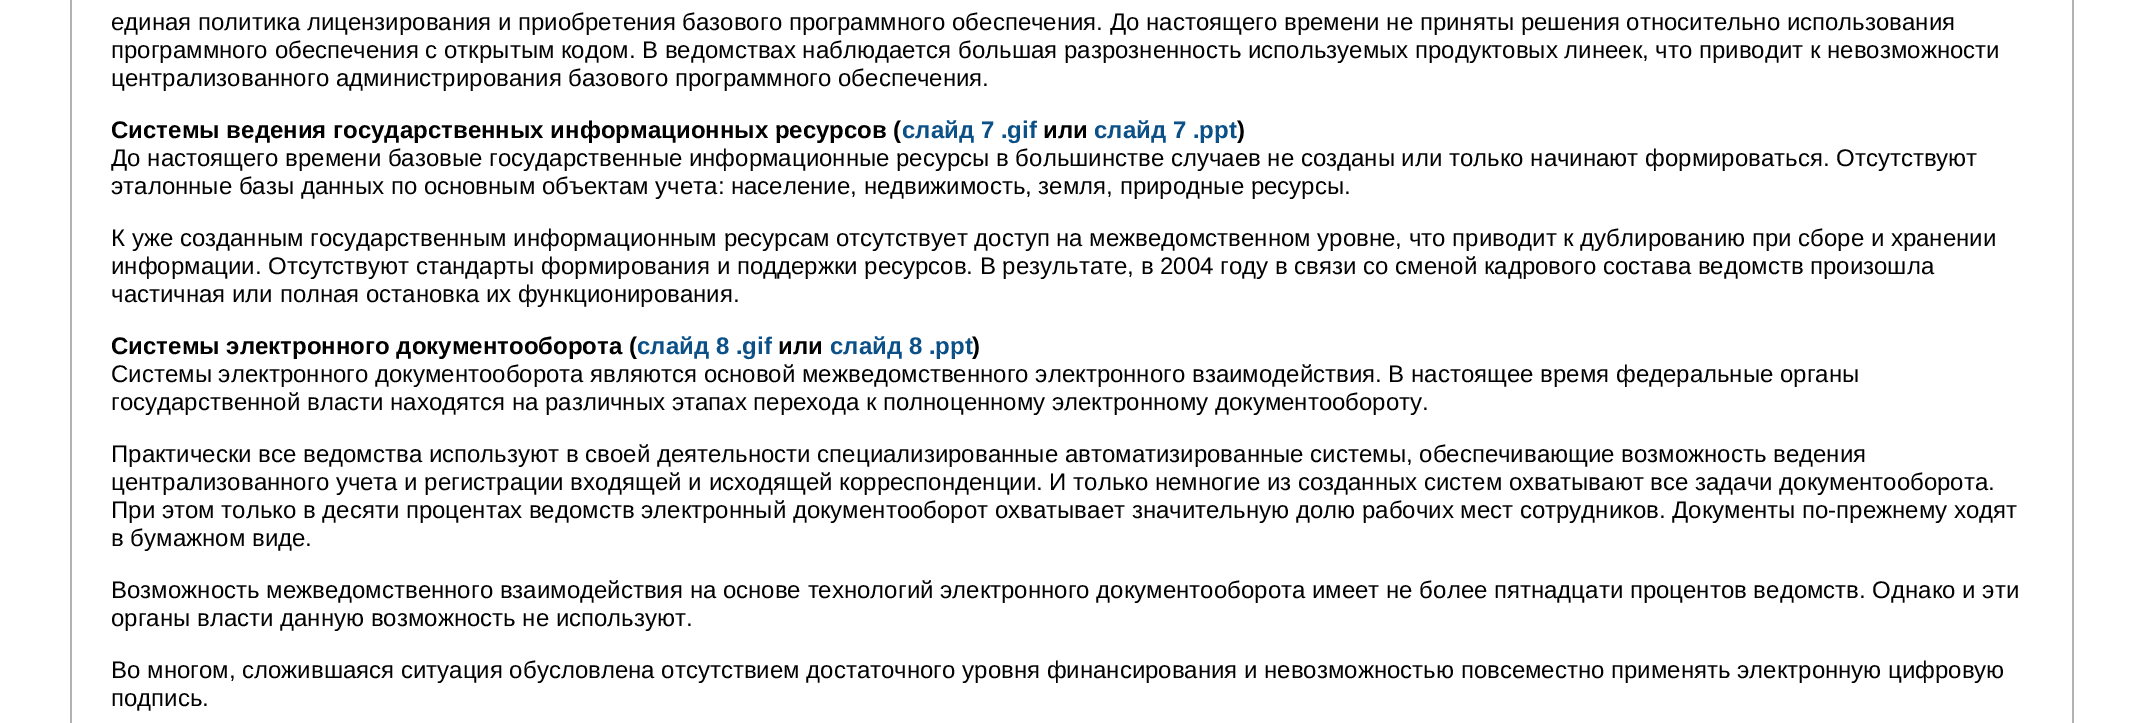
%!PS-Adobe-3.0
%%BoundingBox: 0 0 2142 723
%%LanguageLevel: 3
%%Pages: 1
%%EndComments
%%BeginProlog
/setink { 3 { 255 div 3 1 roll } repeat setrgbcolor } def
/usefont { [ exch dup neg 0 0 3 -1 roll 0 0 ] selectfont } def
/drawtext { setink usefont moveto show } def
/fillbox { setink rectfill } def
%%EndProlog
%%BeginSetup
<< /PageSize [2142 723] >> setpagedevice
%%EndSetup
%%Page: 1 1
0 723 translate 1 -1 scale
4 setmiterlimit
0 0 2142 723 255 255 255 fillbox
2072 0 2 723 178 178 178 fillbox
70 0 2 723 178 178 178 fillbox
(единая политика лицензирования и приобретения базового программного обеспечения. До настоящего времени не приняты решения относительно использования) 111 30 /LiberationSans-Regular 24 0 0 0 drawtext
(программного обеспечения с открытым кодом. В ведомствах наблюдается большая разрозненность используемых продуктовых линеек, что приводит к невозможности) 111 58 /LiberationSans-Regular 24 0 0 0 drawtext
(централизованного администрирования базового программного обеспечения.) 111 86 /LiberationSans-Regular 24 0 0 0 drawtext
(Системы ведения государственных информационных ресурсов \() 111 138 /LiberationSans-Bold 24 0 0 0 drawtext
(слайд 7 .gif) 902 138 /LiberationSans-Bold 24 11 80 135 drawtext
(или) 1043 138 /LiberationSans-Bold 24 0 0 0 drawtext
(слайд 7 .ppt) 1094 138 /LiberationSans-Bold 24 11 80 135 drawtext
(\)) 1237 138 /LiberationSans-Bold 24 0 0 0 drawtext
(До настоящего времени базовые государственные информационные ресурсы в большинстве случаев не созданы или только начинают формироваться. Отсутствуют) 111 166 /LiberationSans-Regular 24 0 0 0 drawtext
(эталонные базы данных по основным объектам учета: население, недвижимость, земля, природные ресурсы.) 111 194 /LiberationSans-Regular 24 0 0 0 drawtext
(К уже созданным государственным информационным ресурсам отсутствует доступ на межведомственном уровне, что приводит к дублированию при сборе и хранении) 111 246 /LiberationSans-Regular 24 0 0 0 drawtext
(информации. Отсутствуют стандарты формирования и поддержки ресурсов. В результате, в 2004 году в связи со сменой кадрового состава ведомств произошла) 111 274 /LiberationSans-Regular 24 0 0 0 drawtext
(частичная или полная остановка их функционирования.) 111 302 /LiberationSans-Regular 24 0 0 0 drawtext
(Системы электронного документооборота \() 111 354 /LiberationSans-Bold 24 0 0 0 drawtext
(слайд 8 .gif) 637 354 /LiberationSans-Bold 24 11 80 135 drawtext
(или) 778 354 /LiberationSans-Bold 24 0 0 0 drawtext
(слайд 8 .ppt) 830 354 /LiberationSans-Bold 24 11 80 135 drawtext
(\)) 972 354 /LiberationSans-Bold 24 0 0 0 drawtext
(Системы электронного документооборота являются основой межведомственного электронного взаимодействия. В настоящее время федеральные органы) 111 382 /LiberationSans-Regular 24 0 0 0 drawtext
(государственной власти находятся на различных этапах перехода к полноценному электронному документообороту.) 111 410 /LiberationSans-Regular 24 0 0 0 drawtext
(Практически все ведомства используют в своей деятельности специализированные автоматизированные системы, обеспечивающие возможность ведения) 111 462 /LiberationSans-Regular 24 0 0 0 drawtext
(централизованного учета и регистрации входящей и исходящей корреспонденции. И только немногие из созданных систем охватывают все задачи документооборота.) 111 490 /LiberationSans-Regular 24 0 0 0 drawtext
(При этом только в десяти процентах ведомств электронный документооборот охватывает значительную долю рабочих мест сотрудников. Документы по-прежнему ходят) 111 518 /LiberationSans-Regular 24 0 0 0 drawtext
(в бумажном виде.) 111 546 /LiberationSans-Regular 24 0 0 0 drawtext
(Возможность межведомственного взаимодействия на основе технологий электронного документооборота имеет не более пятнадцати процентов ведомств. Однако и эти) 111 598 /LiberationSans-Regular 24 0 0 0 drawtext
(органы власти данную возможность не используют.) 111 626 /LiberationSans-Regular 24 0 0 0 drawtext
(Во многом, сложившаяся ситуация обусловлена отсутствием достаточного уровня финансирования и невозможностью повсеместно применять электронную цифровую) 111 678 /LiberationSans-Regular 24 0 0 0 drawtext
(подпись.) 111 706 /LiberationSans-Regular 24 0 0 0 drawtext
showpage
%%EOF
